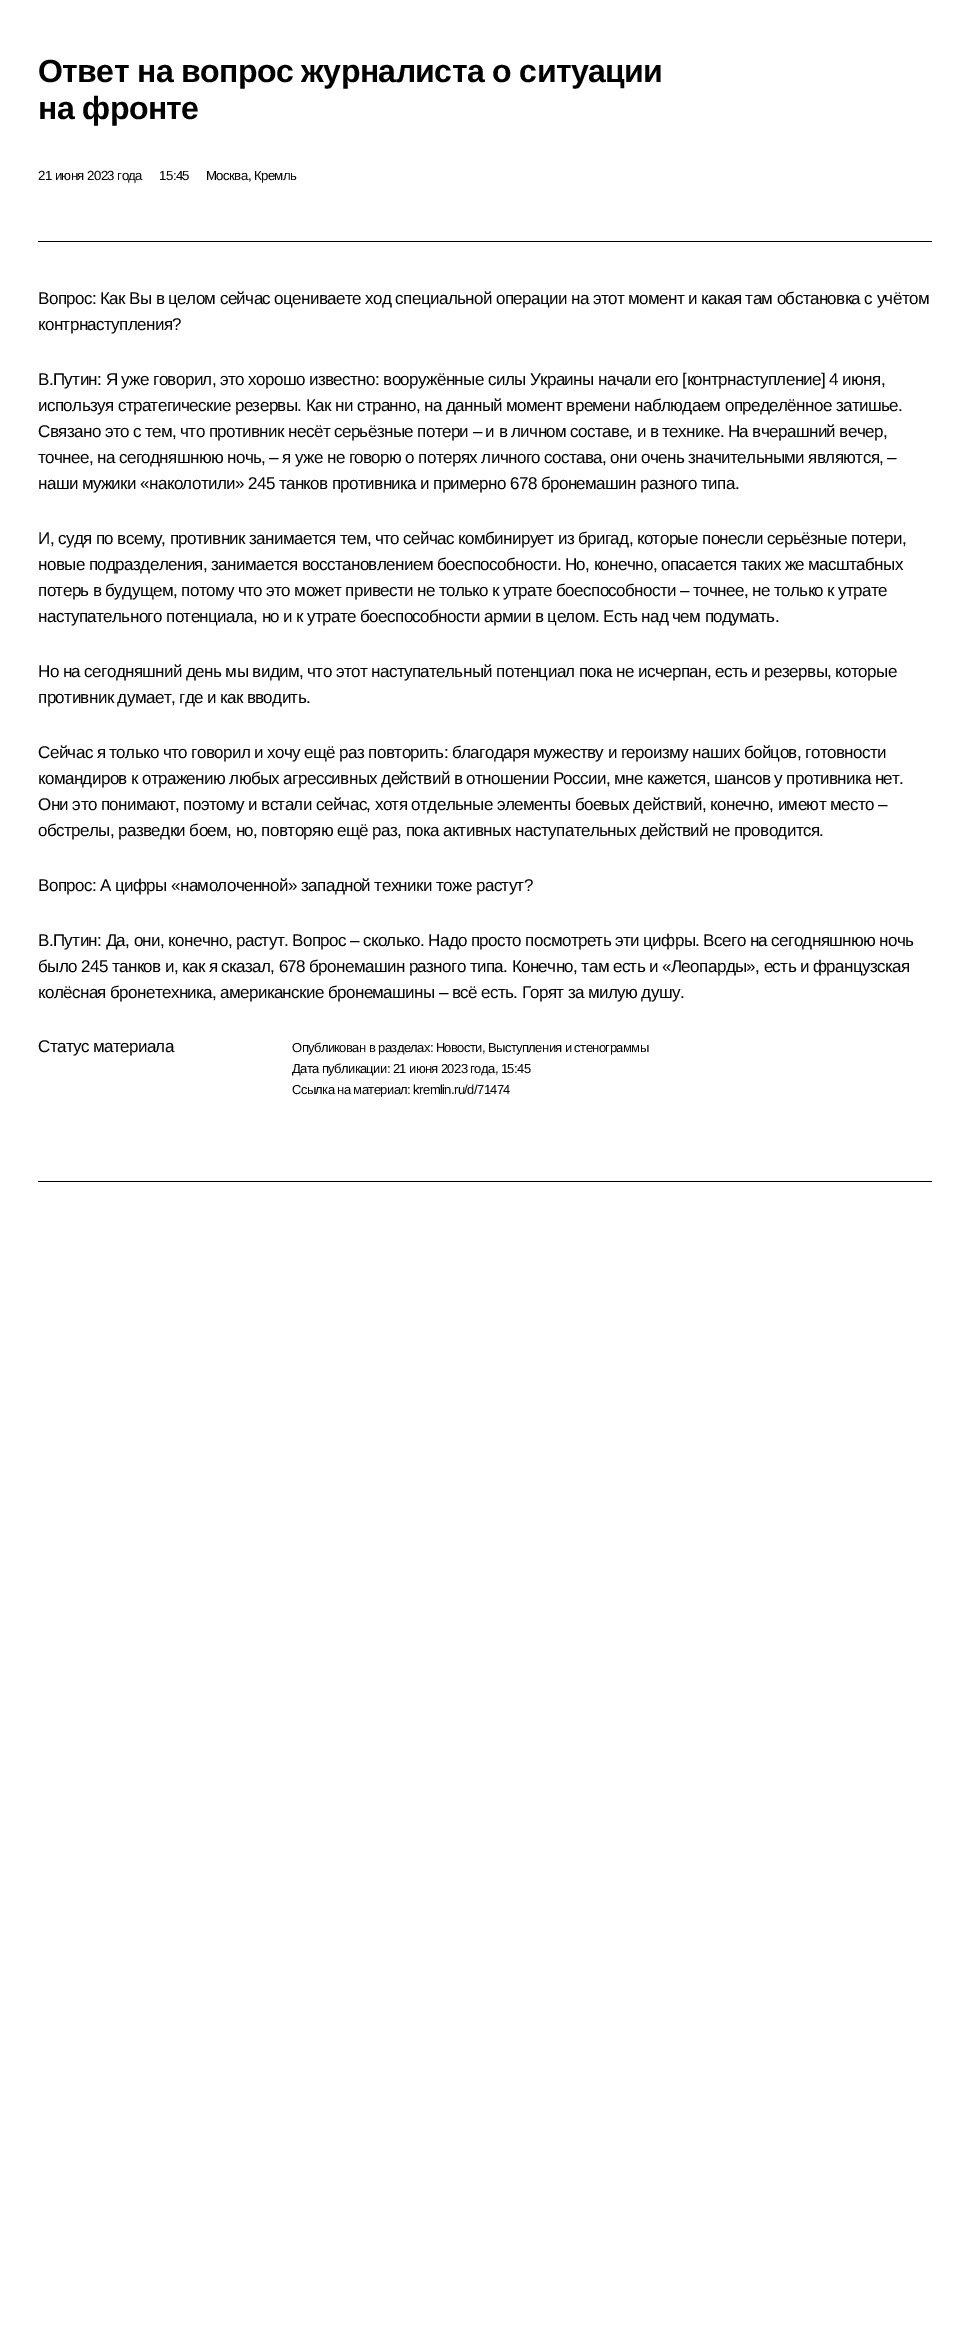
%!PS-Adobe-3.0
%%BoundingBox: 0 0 970 2345
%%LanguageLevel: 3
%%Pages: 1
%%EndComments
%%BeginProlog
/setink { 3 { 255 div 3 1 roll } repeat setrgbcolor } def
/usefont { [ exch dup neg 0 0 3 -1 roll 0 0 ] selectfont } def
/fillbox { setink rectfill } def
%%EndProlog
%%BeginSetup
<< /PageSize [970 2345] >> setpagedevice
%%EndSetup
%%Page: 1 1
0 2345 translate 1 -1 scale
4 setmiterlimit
0 0 970 2345 255 255 255 fillbox
38 1181 894 1 0 0 0 fillbox
38 241 894 1 0 0 0 fillbox
/LiberationSans-Bold 32 usefont
38 82 moveto -0.6 0 (Ответ на вопрос журналиста о ситуации) ashow
38 119 moveto -0.6 0 (на фронте) ashow
/LiberationSans-Regular 13.25 usefont
38 180 moveto -0.6 0 (21 июня 2023 года) ashow
159 180 moveto -0.6 0 (15:45) ashow
206 180 moveto -0.6 0 (Москва, Кремль) ashow
/LiberationSans-Regular 17 usefont
38 304 moveto -0.6 0 (Вопрос: Как Вы в целом сейчас оцениваете ход специальной операции на этот момент и какая там обстановка с учётом) ashow
38 330 moveto -0.6 0 (контрнаступления?) ashow
38 385 moveto -0.6 0 (В.Путин: Я уже говорил, это хорошо известно: вооружённые силы Украины начали его [контрнаступление] 4 июня,) ashow
38 411 moveto -0.6 0 (используя стратегические резервы. Как ни странно, на данный момент времени наблюдаем определённое затишье.) ashow
38 437 moveto -0.6 0 (Связано это с тем, что противник несёт серьёзные потери – и в личном составе, и в технике. На вчерашний вечер,) ashow
38 463 moveto -0.6 0 (точнее, на сегодняшнюю ночь, – я уже не говорю о потерях личного состава, они очень значительными являются, –) ashow
38 489 moveto -0.6 0 (наши мужики «наколотили» 245 танков противника и примерно 678 бронемашин разного типа.) ashow
38 544 moveto -0.6 0 (И, судя по всему, противник занимается тем, что сейчас комбинирует из бригад, которые понесли серьёзные потери,) ashow
38 570 moveto -0.6 0 (новые подразделения, занимается восстановлением боеспособности. Но, конечно, опасается таких же масштабных) ashow
38 596 moveto -0.6 0 (потерь в будущем, потому что это может привести не только к утрате боеспособности – точнее, не только к утрате) ashow
38 622 moveto -0.6 0 (наступательного потенциала, но и к утрате боеспособности армии в целом. Есть над чем подумать.) ashow
38 677 moveto -0.6 0 (Но на сегодняшний день мы видим, что этот наступательный потенциал пока не исчерпан, есть и резервы, которые) ashow
38 703 moveto -0.6 0 (противник думает, где и как вводить.) ashow
38 758 moveto -0.6 0 (Сейчас я только что говорил и хочу ещё раз повторить: благодаря мужеству и героизму наших бойцов, готовности) ashow
38 784 moveto -0.6 0 (командиров к отражению любых агрессивных действий в отношении России, мне кажется, шансов у противника нет.) ashow
38 810 moveto -0.6 0 (Они это понимают, поэтому и встали сейчас, хотя отдельные элементы боевых действий, конечно, имеют место –) ashow
38 836 moveto -0.6 0 (обстрелы, разведки боем, но, повторяю ещё раз, пока активных наступательных действий не проводится.) ashow
38 891 moveto -0.6 0 (Вопрос: А цифры «намолоченной» западной техники тоже растут?) ashow
38 946 moveto -0.6 0 (В.Путин: Да, они, конечно, растут. Вопрос – сколько. Надо просто посмотреть эти цифры. Всего на сегодняшнюю ночь) ashow
38 972 moveto -0.6 0 (было 245 танков и, как я сказал, 678 бронемашин разного типа. Конечно, там есть и «Леопарды», есть и французская) ashow
38 998 moveto -0.6 0 (колёсная бронетехника, американские бронемашины – всё есть. Горят за милую душу.) ashow
38 1052 moveto -0.6 0 (Статус материала) ashow
/LiberationSans-Regular 13 usefont
292 1052 moveto -0.6 0 (Опубликован в разделах: Новости, Выступления и стенограммы) ashow
292 1073 moveto -0.6 0 (Дата публикации: 21 июня 2023 года, 15:45) ashow
292 1094 moveto -0.6 0 (Ссылка на материал: kremlin.ru/d/71474) ashow
showpage
%%EOF
